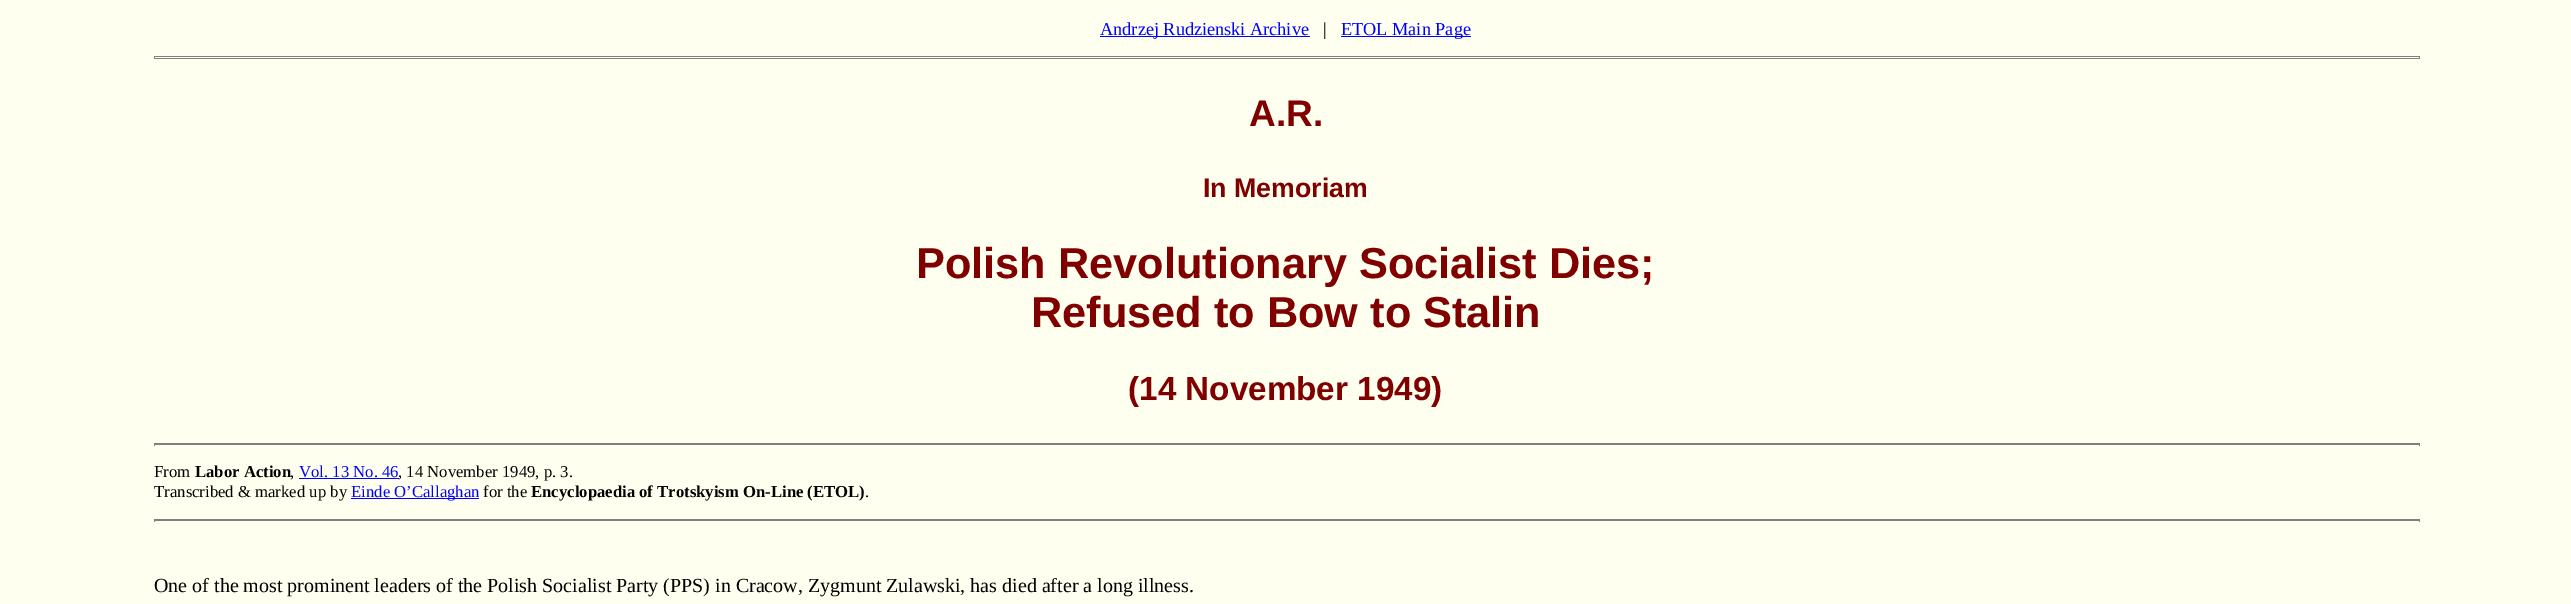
%!PS-Adobe-3.0
%%BoundingBox: 0 0 2571 604
%%LanguageLevel: 3
%%Pages: 1
%%EndComments
%%BeginProlog
/setink { 3 { 255 div 3 1 roll } repeat setrgbcolor } def
/usefont { [ exch dup neg 0 0 3 -1 roll 0 0 ] selectfont } def
/drawtext { setink usefont moveto show } def
/fillbox { setink rectfill } def
%%EndProlog
%%BeginSetup
<< /PageSize [2571 604] >> setpagedevice
%%EndSetup
%%Page: 1 1
0 604 translate 1 -1 scale
4 setmiterlimit
0 0 2571 604 255 255 240 fillbox
1100 36 210 1 0 0 255 fillbox
(Andrzej Rudzienski Archive) 1100 35 /LiberationSerif-Regular 18.25 0 0 255 drawtext
(|) 1323 35 /LiberationSerif-Regular 18.25 0 0 0 drawtext
1341 36 130 1 0 0 255 fillbox
(ETOL Main Page) 1341 35 /LiberationSerif-Regular 18.25 0 0 255 drawtext
155 58 2264 1 128 128 128 fillbox
154 56 2266 1 128 128 128 fillbox
2419 56 1 3 128 128 128 fillbox
154 56 1 3 128 128 128 fillbox
(A.R.) 1249 126 /LiberationSans-Bold 37 128 0 0 drawtext
(In Memoriam) 1203 197 /LiberationSans-Bold 26.75 128 0 0 drawtext
(Polish Revolutionary Socialist Dies;) 916 278 /LiberationSans-Bold 43.3 128 0 0 drawtext
(Refused to Bow to Stalin) 1031 327 /LiberationSans-Bold 43.3 128 0 0 drawtext
(\(14 November 1949\)) 1128 400 /LiberationSans-Bold 33.25 128 0 0 drawtext
155 444 2264 1 128 128 128 fillbox
154 443 2266 1 128 128 128 fillbox
2419 443 1 3 128 128 128 fillbox
154 443 1 3 128 128 128 fillbox
(From) 154 477 /LiberationSerif-Regular 16.7 0 0 0 drawtext
(Labor Action) 195 477 /LiberationSerif-Bold 16.7 0 0 0 drawtext
(,) 290 477 /LiberationSerif-Regular 16.7 0 0 0 drawtext
(Vol. 13 No. 46) 299 477 /LiberationSerif-Regular 16.7 0 0 255 drawtext
299 478 100 1 0 0 255 fillbox
(, 14 November 1949, p. 3.) 398 477 /LiberationSerif-Regular 16.7 0 0 0 drawtext
(Transcribed & marked up by) 154 497 /LiberationSerif-Regular 16.7 0 0 0 drawtext
351 498 128 1 0 0 255 fillbox
(Einde O’Callaghan) 351 497 /LiberationSerif-Regular 16.7 0 0 255 drawtext
(for the) 483 497 /LiberationSerif-Regular 16.7 0 0 0 drawtext
(Encyclopaedia of Trotskyism On-Line \(ETOL\)) 531 497 /LiberationSerif-Bold 16.7 0 0 0 drawtext
(.) 865 497 /LiberationSerif-Regular 16.7 0 0 0 drawtext
155 520 2264 1 128 128 128 fillbox
154 519 2266 1 128 128 128 fillbox
2419 519 1 3 128 128 128 fillbox
154 519 1 3 128 128 128 fillbox
(One of the most prominent leaders of the Polish Socialist Party \(PPS\) in Cracow, Zygmunt Zulawski, has died after a long illness.) 154 592 /LiberationSerif-Regular 20 0 0 0 drawtext
showpage
%%EOF
